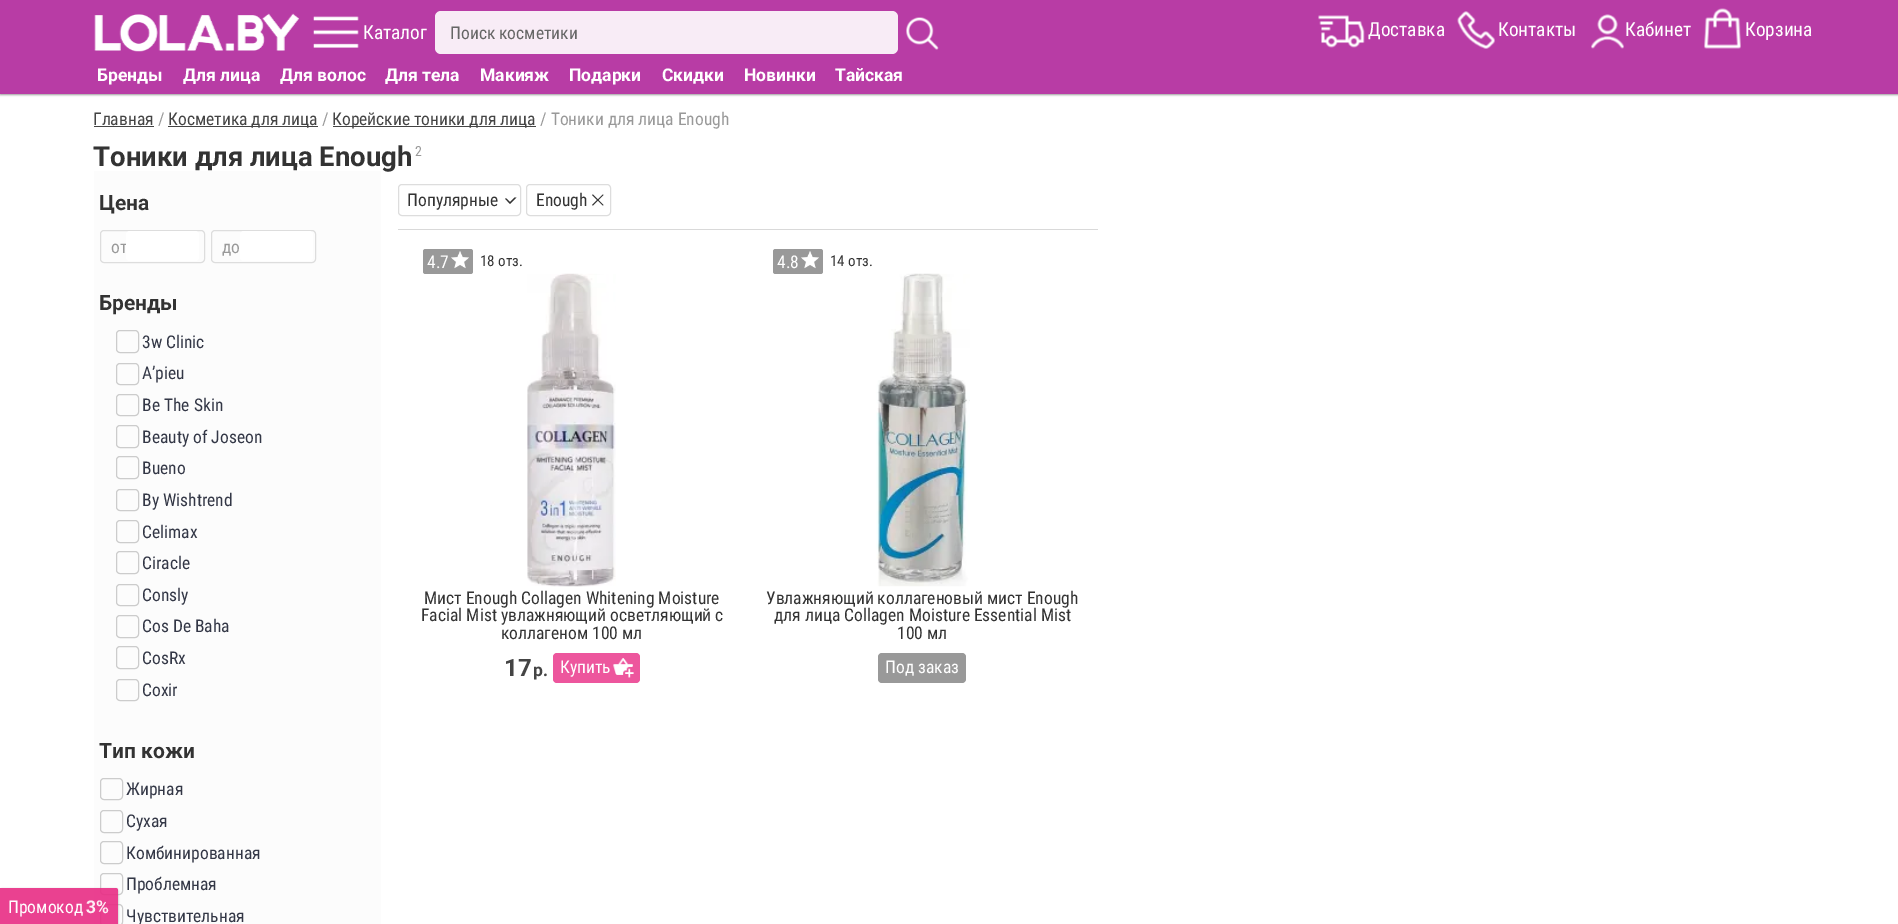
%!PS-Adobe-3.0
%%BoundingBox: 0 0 1898 924
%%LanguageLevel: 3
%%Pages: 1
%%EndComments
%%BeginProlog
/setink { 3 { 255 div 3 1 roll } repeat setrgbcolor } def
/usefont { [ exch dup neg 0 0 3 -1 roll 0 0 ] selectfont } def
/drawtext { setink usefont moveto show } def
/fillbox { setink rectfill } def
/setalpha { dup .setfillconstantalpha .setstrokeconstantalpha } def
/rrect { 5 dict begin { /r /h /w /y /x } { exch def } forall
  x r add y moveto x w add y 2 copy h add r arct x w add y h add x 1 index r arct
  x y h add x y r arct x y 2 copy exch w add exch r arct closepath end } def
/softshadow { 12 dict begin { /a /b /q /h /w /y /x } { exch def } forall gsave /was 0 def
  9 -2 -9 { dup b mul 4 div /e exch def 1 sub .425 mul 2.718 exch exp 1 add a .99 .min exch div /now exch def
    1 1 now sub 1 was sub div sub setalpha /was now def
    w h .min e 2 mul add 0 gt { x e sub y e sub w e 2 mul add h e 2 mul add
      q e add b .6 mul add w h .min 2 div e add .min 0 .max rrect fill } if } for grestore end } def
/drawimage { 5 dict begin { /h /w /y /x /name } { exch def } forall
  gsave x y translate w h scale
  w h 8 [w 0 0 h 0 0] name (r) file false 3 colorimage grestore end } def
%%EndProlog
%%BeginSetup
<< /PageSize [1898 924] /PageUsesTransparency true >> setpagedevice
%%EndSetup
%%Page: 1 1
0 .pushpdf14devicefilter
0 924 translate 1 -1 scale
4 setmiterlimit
0 0 1898 924 255 255 255 fillbox
153 153 153 setink
0 1 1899 94 0 1 1 softshadow
0 0 1898 94 184 60 165 fillbox
(assets/img1.rgb) 94 13 205 39 drawimage
(assets/img2.rgb) 313 16 46 32 drawimage
(Каталог) 363 39 /RobotoCondensed-Regular 19.25 255 255 255 drawtext
248 236 246 setink
435 11 463 43 6 rrect fill
(Поиск косметики) 450 39 /RobotoCondensed-Regular 17.5 102 102 102 drawtext
(assets/img3.rgb) 906 17 33 33 drawimage
(assets/img4.rgb) 1318 15 47 33 drawimage
(Доставка) 1368 36 /RobotoCondensed-Regular 19.25 255 255 255 drawtext
(assets/img5.rgb) 1457 11 38 38 drawimage
(Контакты) 1498 36 /RobotoCondensed-Regular 19.25 255 255 255 drawtext
(assets/img6.rgb) 1591 14 33 35 drawimage
(Кабинет) 1625 36 /RobotoCondensed-Regular 19.25 255 255 255 drawtext
(assets/img7.rgb) 1704 8 37 41 drawimage
(Корзина) 1745 36 /RobotoCondensed-Regular 19.25 255 255 255 drawtext
(Бренды) 97 81 /Roboto-Bold 17.5 255 255 255 drawtext
(Для лица) 183 81 /Roboto-Bold 17.5 255 255 255 drawtext
(Для волос) 280 81 /Roboto-Bold 17.5 255 255 255 drawtext
(Для тела) 385 81 /Roboto-Bold 17.5 255 255 255 drawtext
(Макияж) 480 81 /Roboto-Bold 17.5 255 255 255 drawtext
(Подарки) 569 81 /Roboto-Bold 17.5 255 255 255 drawtext
(Скидки) 662 81 /Roboto-Bold 17.5 255 255 255 drawtext
(Новинки) 744 81 /Roboto-Bold 17.5 255 255 255 drawtext
(Тайская) 835 81 /Roboto-Bold 17.5 255 255 255 drawtext
(Тоники для лица Enough) 93 166 /Roboto-Bold 27.5 51 51 51 drawtext
94 171 287 753 252 252 252 fillbox
204 204 204 setink
100.5 873.5 22 21 3.5 rrect stroke
100.5 904.5 22 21 3.5 rrect stroke
gsave
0 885 moveto 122 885 lineto 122 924 lineto 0 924 lineto closepath 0 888 moveto 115.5 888 lineto 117 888 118 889 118 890.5 curveto 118 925 lineto 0 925 lineto closepath eoclip newpath
153 153 153 setink
0 889 118 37 2.5 1 0.9 softshadow
grestore
0.9 setalpha
232 44 132 setink
0 888 moveto 115.5 888 lineto 117 888 118 889 118 890.5 curveto 118 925 lineto 0 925 lineto closepath fill
1 setalpha
(Промокод) 8 913 /RobotoCondensed-Regular 17.5 255 255 255 drawtext
(3%) 86 913 /Roboto-Bold 17.5 253 236 244 drawtext
(Главная) 93 125 /RobotoCondensed-Regular 17.5 68 68 68 drawtext
94 126 60 1 68 68 68 fillbox
(/) 158 125 /RobotoCondensed-Regular 17.5 153 153 153 drawtext
168 126 150 1 68 68 68 fillbox
(Косметика для лица) 168 125 /RobotoCondensed-Regular 17.5 68 68 68 drawtext
(/) 322 125 /RobotoCondensed-Regular 17.5 153 153 153 drawtext
333 126 203 1 68 68 68 fillbox
(Корейские тоники для лица) 332 125 /RobotoCondensed-Regular 17.5 68 68 68 drawtext
(/ Тоники для лица Enough) 540 125 /RobotoCondensed-Regular 17.5 153 153 153 drawtext
(2) 415 156 /RobotoCondensed-Regular 14 153 153 153 drawtext
(Цена) 99 210 /Roboto-Bold 21 51 51 51 drawtext
221 221 221 setink
100.5 230.5 104 32 3.5 rrect stroke
(от) 111 253 /RobotoCondensed-Regular 17.5 153 153 153 drawtext
255 255 255 setink
126 231 73 30 4 rrect fill
221 221 221 setink
211.5 230.5 104 32 3.5 rrect stroke
(до) 222 253 /RobotoCondensed-Regular 17.5 153 153 153 drawtext
255 255 255 setink
240 231 73 30 4 rrect fill
(Бренды) 99 310 /Roboto-Bold 21 51 51 51 drawtext
204 204 204 setink
116.5 330.5 22 22 3.5 rrect stroke
(3w Clinic) 142 348 /RobotoCondensed-Regular 17.5 51 55 70 drawtext
204 204 204 setink
116.5 363.5 22 21 3.5 rrect stroke
(A’pieu) 142 379 /RobotoCondensed-Regular 17.5 51 55 70 drawtext
204 204 204 setink
116.5 394.5 22 21 3.5 rrect stroke
(Be The Skin) 142 411 /RobotoCondensed-Regular 17.5 51 55 70 drawtext
204 204 204 setink
116.5 425.5 22 22 3.5 rrect stroke
(Beauty of Joseon) 142 443 /RobotoCondensed-Regular 17.5 51 55 70 drawtext
204 204 204 setink
116.5 456.5 22 22 3.5 rrect stroke
(Bueno) 142 474 /RobotoCondensed-Regular 17.5 51 55 70 drawtext
204 204 204 setink
116.5 489.5 22 21 3.5 rrect stroke
(By Wishtrend) 142 506 /RobotoCondensed-Regular 17.5 51 55 70 drawtext
204 204 204 setink
116.5 520.5 22 22 3.5 rrect stroke
(Celimax) 142 538 /RobotoCondensed-Regular 17.5 51 55 70 drawtext
204 204 204 setink
116.5 551.5 22 22 3.5 rrect stroke
(Ciracle) 142 569 /RobotoCondensed-Regular 17.5 51 55 70 drawtext
204 204 204 setink
116.5 584.5 22 21 3.5 rrect stroke
(Consly) 142 601 /RobotoCondensed-Regular 17.5 51 55 70 drawtext
204 204 204 setink
116.5 615.5 22 22 3.5 rrect stroke
(Cos De Baha) 142 632 /RobotoCondensed-Regular 17.5 51 55 70 drawtext
204 204 204 setink
116.5 646.5 22 22 3.5 rrect stroke
(CosRx) 142 664 /RobotoCondensed-Regular 17.5 51 55 70 drawtext
204 204 204 setink
116.5 679.5 22 21 3.5 rrect stroke
(Coxir) 142 696 /RobotoCondensed-Regular 17.5 51 55 70 drawtext
(Тип кожи) 99 758 /Roboto-Bold 21 51 51 51 drawtext
204 204 204 setink
100.5 778.5 22 21 3.5 rrect stroke
(Жирная) 126 795 /RobotoCondensed-Regular 17.5 51 55 70 drawtext
204 204 204 setink
100.5 810.5 22 22 3.5 rrect stroke
(Сухая) 126 827 /RobotoCondensed-Regular 17.5 51 55 70 drawtext
204 204 204 setink
100.5 841.5 22 22 3.5 rrect stroke
(Комбинированная) 126 859 /RobotoCondensed-Regular 17.5 51 55 70 drawtext
(Проблемная) 126 890 /RobotoCondensed-Regular 17.5 51 55 70 drawtext
(Чувствительная) 126 922 /RobotoCondensed-Regular 17.5 51 55 70 drawtext
221 221 221 setink
398.5 184.5 122 31 3.5 rrect stroke
(Популярные) 407 206 /RobotoCondensed-Regular 17.5 51 51 51 drawtext
516.5 197.5 moveto 510 204 lineto 510 202 lineto 514.5 197.5 lineto closepath 510 204 moveto 505 198.5 lineto 506.5 198.5 lineto 510 202 lineto closepath fill
221 221 221 setink
526.5 184.5 84 31 3.5 rrect stroke
(Enough) 536 206 /RobotoCondensed-Regular 17.5 51 51 51 drawtext
603 194.5 moveto 603.5 195 lineto 593 205.5 lineto 592 205 lineto closepath fill
592 195 moveto 593 194.5 lineto 603.5 205 lineto 603 205.5 lineto closepath fill
398 229 700 1 217 217 217 fillbox
153 153 153 setink
423 249 50 25 2.5 rrect fill
(assets/img8.rgb) 451 251 18 18 drawimage
(4.7) 427 268 /RobotoCondensed-Regular 17.5 255 255 255 drawtext
(18 отз.) 480 266 /RobotoCondensed-Regular 15 51 51 51 drawtext
(assets/img9.rgb) 527 273 89 314 drawimage
(Мист Enough Collagen Whitening Moisture) 424 604 /RobotoCondensed-Regular 17.5 51 51 51 drawtext
(Facial Mist увлажняющий осветляющий с) 421 621 /RobotoCondensed-Regular 17.5 51 51 51 drawtext
(коллагеном 100 мл) 501 639 /RobotoCondensed-Regular 17.5 51 51 51 drawtext
(17) 504 676 /Roboto-Bold 24 68 68 68 drawtext
(р.) 533 676 /Roboto-Bold 17.5 68 68 68 drawtext
237 86 157 setink
553 653 87 30 4 rrect fill
(assets/img10.rgb) 613 658 21 20 drawimage
(Купить) 560 673 /RobotoCondensed-Regular 17.5 255 255 255 drawtext
153 153 153 setink
773 249 50 25 2.5 rrect fill
(assets/img11.rgb) 801 251 18 18 drawimage
(4.8) 777 268 /RobotoCondensed-Regular 17.5 255 255 255 drawtext
(14 отз.) 830 266 /RobotoCondensed-Regular 15 51 51 51 drawtext
(assets/img12.rgb) 876 273 94 314 drawimage
(Увлажняющий коллагеновый мист Enough) 766 604 /RobotoCondensed-Regular 17.5 51 51 51 drawtext
(для лица Collagen Moisture Essential Mist) 774 621 /RobotoCondensed-Regular 17.5 51 51 51 drawtext
(100 мл) 897 639 /RobotoCondensed-Regular 17.5 51 51 51 drawtext
153 153 153 setink
878 653 88 30 4 rrect fill
(Под заказ) 885 673 /RobotoCondensed-Regular 17.5 255 255 255 drawtext
.poppdf14devicefilter showpage
%%EOF
